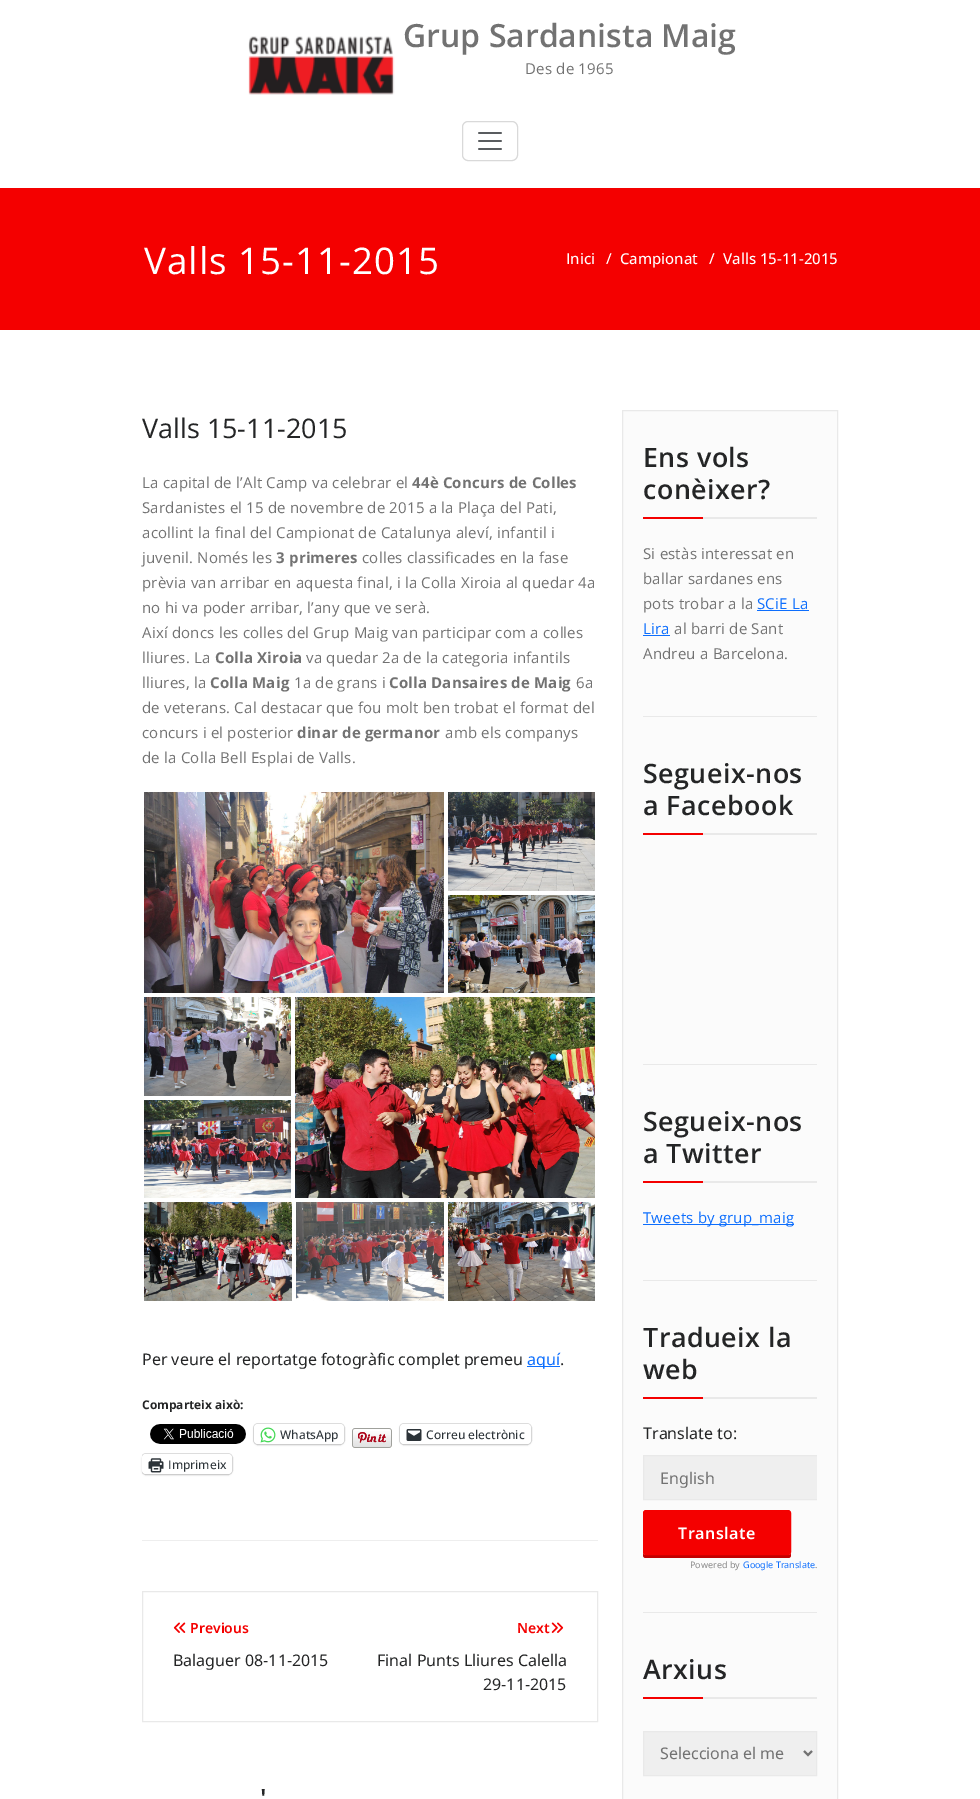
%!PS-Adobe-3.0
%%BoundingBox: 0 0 980 1799
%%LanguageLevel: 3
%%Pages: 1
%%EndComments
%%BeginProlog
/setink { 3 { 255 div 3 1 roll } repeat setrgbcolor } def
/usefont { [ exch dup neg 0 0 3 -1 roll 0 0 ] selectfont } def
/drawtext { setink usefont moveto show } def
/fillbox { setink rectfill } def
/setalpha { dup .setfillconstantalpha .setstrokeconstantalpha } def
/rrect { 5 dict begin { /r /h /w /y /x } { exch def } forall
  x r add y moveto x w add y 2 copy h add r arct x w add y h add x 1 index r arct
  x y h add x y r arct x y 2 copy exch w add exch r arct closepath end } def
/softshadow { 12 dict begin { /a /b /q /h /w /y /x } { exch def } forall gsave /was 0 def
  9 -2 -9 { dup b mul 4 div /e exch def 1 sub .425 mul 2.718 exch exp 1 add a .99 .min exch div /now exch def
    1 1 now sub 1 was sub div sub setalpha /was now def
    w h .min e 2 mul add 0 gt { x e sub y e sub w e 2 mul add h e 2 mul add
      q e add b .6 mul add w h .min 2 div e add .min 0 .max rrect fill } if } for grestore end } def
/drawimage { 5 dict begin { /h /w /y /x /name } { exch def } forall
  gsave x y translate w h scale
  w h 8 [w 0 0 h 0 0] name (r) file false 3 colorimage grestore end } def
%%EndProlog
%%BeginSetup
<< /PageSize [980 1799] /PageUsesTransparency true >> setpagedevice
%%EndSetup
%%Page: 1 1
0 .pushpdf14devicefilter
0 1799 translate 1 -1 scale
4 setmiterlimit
0 0 980 1799 255 255 255 fillbox
(assets/img1.rgb) 248 36 147 59 drawimage
(Grup Sardanista Maig) 403 47 /OpenSans-SemiBold 32 114 114 114 drawtext
/OpenSans-Regular 15 usefont
525 74 moveto 0.2 0 (Des de 1965) ashow
217 217 217 setink
462.5 121.5 55 39 5.5 rrect stroke
(assets/img2.rgb) 478 132 24 18 drawimage
0 188 980 142 244 0 0 fillbox
/OpenSans-Regular 36.75 usefont
255 255 255 setink
144 274 moveto 1 0 (Valls 15-11-2015) ashow
(Inici) 566 264 /OpenSans-Medium 15 255 255 255 drawtext
(/) 606 264 /OpenSans-Medium 15 255 255 255 drawtext
(Campionat) 620 264 /OpenSans-Medium 15 255 255 255 drawtext
(/) 709 264 /OpenSans-Medium 15 255 255 255 drawtext
(Valls 15-11-2015) 723 264 /OpenSans-Medium 15 255 255 255 drawtext
142 1540 456 1 238 238 238 fillbox
(Valls 15-11-2015) 142 438 /OpenSans-Regular 27 36 37 38 drawtext
/OpenSans-Regular 15 usefont
114 114 114 setink
142 488 moveto 0.2 0 (La capital de l’Alt Camp va celebrar el) ashow
/OpenSans-Bold 15 usefont
412 488 moveto 0.2 0 (44è Concurs de Colles) ashow
/OpenSans-Regular 15 usefont
142 513 moveto 0.2 0 (Sardanistes el 15 de novembre de 2015 a la Plaça del Pati,) ashow
142 538 moveto 0.2 0 (acollint la final del Campionat de Catalunya aleví, infantil i) ashow
142 563 moveto 0.2 0 (juvenil. Només les) ashow
/OpenSans-Bold 15 usefont
276 563 moveto 0.2 0 (3 primeres) ashow
/OpenSans-Regular 15 usefont
362 563 moveto 0.2 0 (colles classificades en la fase) ashow
142 588 moveto 0.2 0 (prèvia van arribar en aquesta final, i la Colla Xiroia al quedar 4a) ashow
142 613 moveto 0.2 0 (no hi va poder arribar, l’any que ve serà.) ashow
142 638 moveto 0.2 0 (Així doncs les colles del Grup Maig van participar com a colles) ashow
142 663 moveto 0.2 0 (lliures. La) ashow
/OpenSans-Bold 15 usefont
215 663 moveto 0.2 0 (Colla Xiroia) ashow
/OpenSans-Regular 15 usefont
306 663 moveto 0.2 0 (va quedar 2a de la categoria infantils) ashow
142 688 moveto 0.2 0 (lliures, la) ashow
/OpenSans-Bold 15 usefont
210 688 moveto 0.2 0 (Colla Maig) ashow
/OpenSans-Regular 15 usefont
294 688 moveto 0.2 0 (1a de grans i) ashow
/OpenSans-Bold 15 usefont
389 688 moveto 0.2 0 (Colla Dansaires de Maig) ashow
/OpenSans-Regular 15 usefont
576 688 moveto 0.2 0 (6a) ashow
142 713 moveto 0.2 0 (de veterans. Cal destacar que fou molt ben trobat el format del) ashow
142 738 moveto 0.2 0 (concurs i el posterior) ashow
/OpenSans-Bold 15 usefont
297 738 moveto 0.2 0 (dinar de germanor) ashow
/OpenSans-Regular 15 usefont
445 738 moveto 0.2 0 (amb els companys) ashow
142 763 moveto 0.2 0 (de la Colla Bell Esplai de Valls.) ashow
(assets/img3.rgb) 144 792 300 201 drawimage
(assets/img4.rgb) 448 792 147 99 drawimage
(assets/img5.rgb) 448 895 147 98 drawimage
(assets/img6.rgb) 144 997 147 99 drawimage
(assets/img7.rgb) 144 1100 147 98 drawimage
(assets/img8.rgb) 295 997 300 201 drawimage
(assets/img9.rgb) 144 1202 148 99 drawimage
(assets/img10.rgb) 296 1202 148 99 drawimage
(assets/img11.rgb) 448 1202 147 99 drawimage
(Per veure el reportatge fotogràfic complet premeu) 142 1365 /NotoSans-Regular 16 36 37 38 drawtext
527 1366 33 1 13 110 253 fillbox
(aquí) 527 1365 /NotoSans-Regular 16 13 110 253 drawtext
(.) 560 1365 /NotoSans-Regular 16 36 37 38 drawtext
(Comparteix això:) 142 1409 /OpenSans-Bold 12 36 37 38 drawtext
(assets/img12.rgb) 150 1424 96 20 drawimage
224 224 224 setink
253.5 1423.5 91 21 4.5 rrect stroke
0 0 0 setink
254 1425 90 20 4 1 0.12 softshadow
255 255 255 setink
254 1424 90 20 4 rrect fill
(assets/img13.rgb) 260 1427 16 16 drawimage
(WhatsApp) 280 1439 /OpenSans-Medium 12 44 51 56 drawtext
(assets/img14.rgb) 352 1428 40 20 drawimage
224 224 224 setink
399.5 1423.5 132 21 4.5 rrect stroke
0 0 0 setink
400 1425 131 20 4 1 0.12 softshadow
255 255 255 setink
400 1424 131 20 4 rrect fill
(assets/img15.rgb) 406 1429 16 12 drawimage
(Correu electrònic) 426 1439 /OpenSans-Medium 12 44 51 56 drawtext
gsave
142 410 456 1130 rectclip
224 224 224 setink
141.5 1453.5 91 21 4.5 rrect stroke
grestore
0 0 0 setink
142 1455 90 20 4 1 0.12 softshadow
255 255 255 setink
142 1454 90 20 4 rrect fill
(assets/img16.rgb) 148 1458 16 15 drawimage
(Imprimeix) 168 1469 /OpenSans-Medium 12 44 51 56 drawtext
233 233 233 setink
142.5 1591.5 455 130 rectstroke
(assets/img17.rgb) 173 1622 13 11 drawimage
(Previous) 190 1633 /NotoSans-SemiBold 14 244 0 0 drawtext
(Balaguer 08-11-2015) 173 1666 /NotoSans-Regular 16 36 37 38 drawtext
(Next) 517 1633 /NotoSans-SemiBold 14 244 0 0 drawtext
(assets/img18.rgb) 551 1622 13 11 drawimage
(Final Punts Lliures Calella) 377 1666 /NotoSans-Regular 16 36 37 38 drawtext
(29-11-2015) 483 1690 /NotoSans-Regular 16 36 37 38 drawtext
(') 260 1808 /OpenSans-SemiBold 26.75 36 37 38 drawtext
251 251 251 setink
622.5 410.5 moveto 837.5 410.5 lineto 837.5 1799.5 lineto 622.5 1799.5 lineto closepath gsave fill grestore
233 233 233 setink
stroke
643 716 174 1 233 233 233 fillbox
36 37 38 setink
643 467 moveto 0.5 0 (Ens vols) ashow
643 499 moveto 0.5 0 (conèixer?) ashow
643 517 60 2 244 0 0 fillbox
703 517 114 2 233 233 233 fillbox
/OpenSans-Regular 15 usefont
114 114 114 setink
643 559 moveto 0.2 0 (Si estàs interessat en) ashow
643 584 moveto 0.2 0 (ballar sardanes ens) ashow
643 609 moveto 0.2 0 (pots trobar a la) ashow
13 110 253 setink
757 609 moveto 0.2 0 (SCiE La) ashow
757 610 52 1 13 110 253 fillbox
643 634 moveto 0.2 0 (Lira) ashow
643 635 27 1 13 110 253 fillbox
114 114 114 setink
674 634 moveto 0.2 0 (al barri de Sant) ashow
643 659 moveto 0.2 0 (Andreu a Barcelona.) ashow
643 1064 174 1 233 233 233 fillbox
/OpenSans-SemiBold 26.75 usefont
36 37 38 setink
643 783 moveto 0.5 0 (Segueix-nos) ashow
643 815 moveto 0.5 0 (a Facebook) ashow
643 833 60 2 244 0 0 fillbox
703 833 114 2 233 233 233 fillbox
643 1280 174 1 233 233 233 fillbox
36 37 38 setink
643 1131 moveto 0.5 0 (Segueix-nos) ashow
643 1163 moveto 0.5 0 (a Twitter) ashow
643 1181 60 2 244 0 0 fillbox
703 1181 114 2 233 233 233 fillbox
643 1224 151 1 13 110 253 fillbox
/OpenSans-Regular 15 usefont
643 1223 moveto 0.2 0 (Tweets by grup_maig) ashow
643 1612 174 1 233 233 233 fillbox
/OpenSans-SemiBold 26.75 usefont
36 37 38 setink
643 1347 moveto 0.5 0 (Tradueix la) ashow
643 1379 moveto 0.5 0 (web) ashow
643 1397 60 2 244 0 0 fillbox
703 1397 114 2 233 233 233 fillbox
(Translate to:) 643 1439 /NotoSans-Regular 16 36 37 38 drawtext
644 1456 173 43 239 239 239 fillbox
gsave
643 1421 174 151 rectclip
233 233 233 setink
643.5 1455.5 200 44 rectstroke
grestore
(English) 660 1484 /NotoSans-Regular 16 114 114 114 drawtext
194 0 0 setink
643 1552 moveto 643 1555 lineto 643 1557 644 1558 646 1558 curveto 788 1558 lineto 790 1558 791 1557 791 1555 curveto 791 1552 lineto 791 1554 790 1555 788 1555 curveto 646 1555 lineto 644 1555 643 1554 643 1552 curveto closepath fill
244 0 0 setink
643.5 1510.5 147 44 2.5 rrect gsave fill grestore
stroke
/NotoSans-SemiBold 16 usefont
255 255 255 setink
678 1539 moveto 0.5 0 (Translate) ashow
(Powered by) 690 1568 /NotoSans-Regular 9 136 136 136 drawtext
(Google Translate) 743 1568 /NotoSans-Regular 9 13 110 253 drawtext
(.) 815 1568 /NotoSans-Regular 9 136 136 136 drawtext
/OpenSans-SemiBold 26.75 usefont
36 37 38 setink
643 1679 moveto 0.5 0 (Arxius) ashow
643 1697 60 2 244 0 0 fillbox
703 1697 114 2 233 233 233 fillbox
239 239 239 setink
643.5 1731.5 moveto 816.5 1731.5 lineto 816.5 1775.5 lineto 643.5 1775.5 lineto closepath gsave fill grestore
233 233 233 setink
stroke
114 114 114 setink
2 setlinewidth
804 1751 moveto 808 1755 lineto 812 1751 lineto stroke
(Selecciona el me) 660 1759 /NotoSans-Regular 16 114 114 114 drawtext
.poppdf14devicefilter showpage
%%EOF
